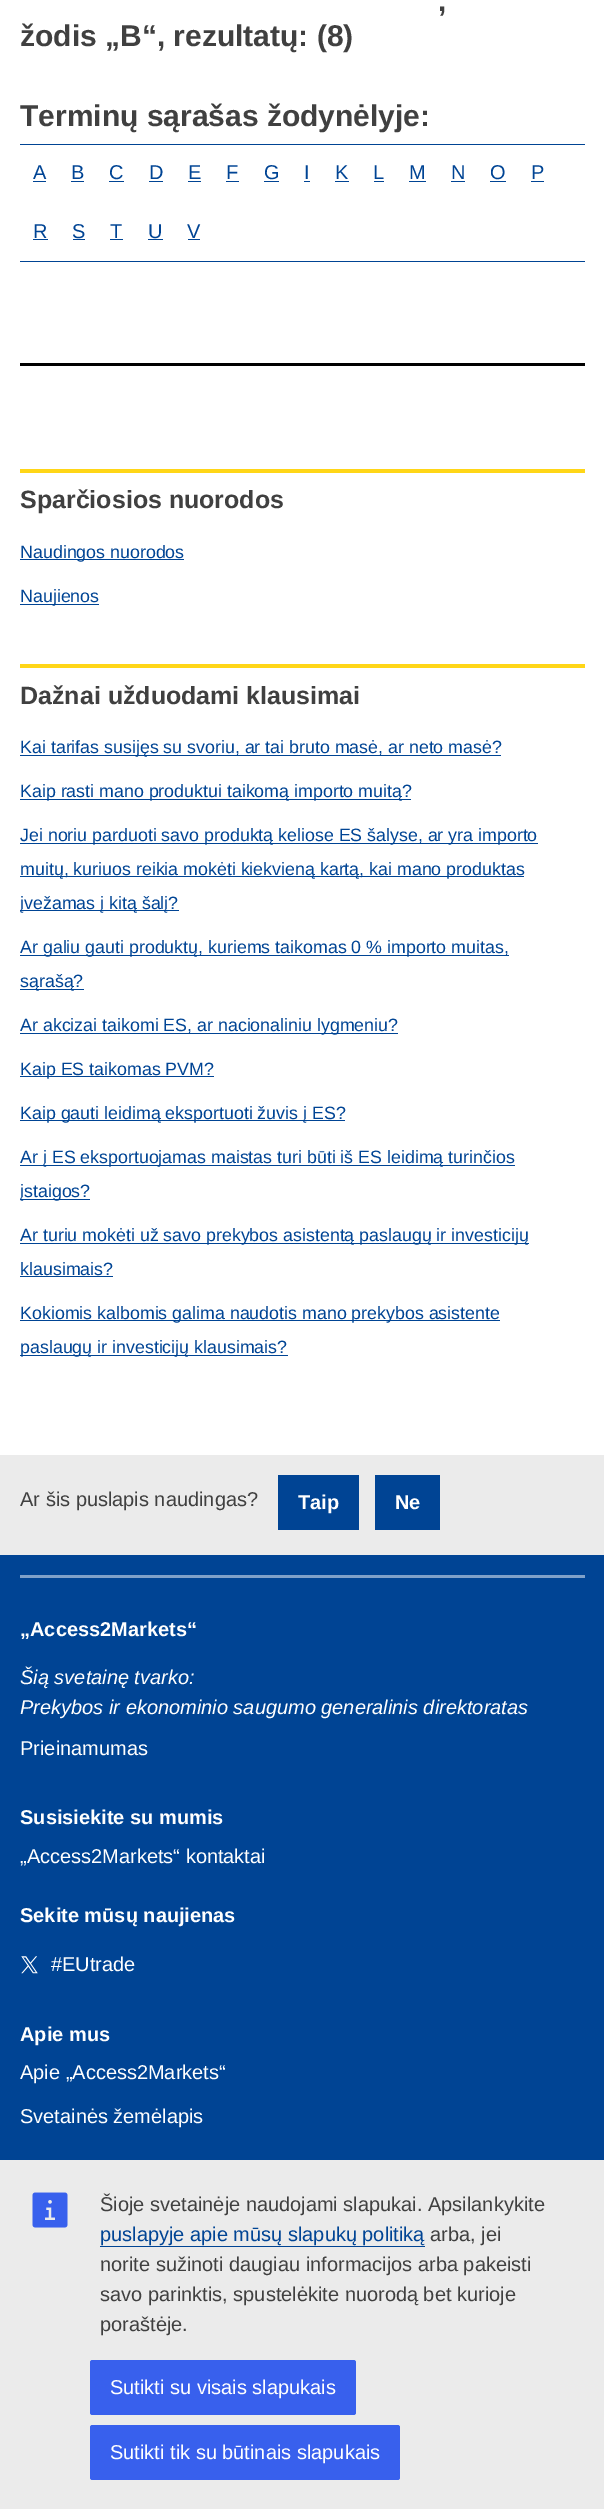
%!PS-Adobe-3.0
%%BoundingBox: 0 0 604 2509
%%LanguageLevel: 3
%%Pages: 1
%%EndComments
%%BeginProlog
/setink { 3 { 255 div 3 1 roll } repeat setrgbcolor } def
/usefont { [ exch dup neg 0 0 3 -1 roll 0 0 ] selectfont } def
/drawtext { setink usefont moveto show } def
/fillbox { setink rectfill } def
/rrect { 5 dict begin { /r /h /w /y /x } { exch def } forall
  x r add y moveto x w add y 2 copy h add r arct x w add y h add x 1 index r arct
  x y h add x y r arct x y 2 copy exch w add exch r arct closepath end } def
/drawimage { 5 dict begin { /h /w /y /x /name } { exch def } forall
  gsave x y translate w h scale
  w h 8 [w 0 0 h 0 0] name (r) file false 3 colorimage grestore end } def
%%EndProlog
%%BeginSetup
<< /PageSize [604 2509] >> setpagedevice
%%EndSetup
%%Page: 1 1
0 2509 translate 1 -1 scale
4 setmiterlimit
0 0 604 2509 255 255 255 fillbox
(,) 438 11 /LiberationSans-Bold 30 64 64 64 drawtext
(žodis „B“, rezultatų: \(8\)) 20 46 /LiberationSans-Bold 30 64 64 64 drawtext
(Terminų sąrašas žodynėlyje:) 20 126 /LiberationSans-Bold 30 64 64 64 drawtext
20 144 565 1 0 68 148 fillbox
20 261 565 1 0 68 148 fillbox
(A) 33 179 /LiberationSans-Regular 20 0 68 148 drawtext
33 181 13 1 0 68 148 fillbox
(B) 71 179 /LiberationSans-Regular 20 0 68 148 drawtext
71 181 13 1 0 68 148 fillbox
(C) 109 179 /LiberationSans-Regular 20 0 68 148 drawtext
109 181 15 1 0 68 148 fillbox
(D) 149 179 /LiberationSans-Regular 20 0 68 148 drawtext
149 181 14 1 0 68 148 fillbox
(E) 188 179 /LiberationSans-Regular 20 0 68 148 drawtext
188 181 13 1 0 68 148 fillbox
(F) 226 179 /LiberationSans-Regular 20 0 68 148 drawtext
226 181 13 1 0 68 148 fillbox
(G) 264 179 /LiberationSans-Regular 20 0 68 148 drawtext
264 181 15 1 0 68 148 fillbox
(I) 304 179 /LiberationSans-Regular 20 0 68 148 drawtext
304 181 6 1 0 68 148 fillbox
(K) 335 179 /LiberationSans-Regular 20 0 68 148 drawtext
335 181 14 1 0 68 148 fillbox
(L) 373 179 /LiberationSans-Regular 20 0 68 148 drawtext
374 181 10 1 0 68 148 fillbox
(M) 409 179 /LiberationSans-Regular 20 0 68 148 drawtext
409 181 17 1 0 68 148 fillbox
(N) 451 179 /LiberationSans-Regular 20 0 68 148 drawtext
451 181 14 1 0 68 148 fillbox
(O) 490 179 /LiberationSans-Regular 20 0 68 148 drawtext
490 181 16 1 0 68 148 fillbox
(P) 531 179 /LiberationSans-Regular 20 0 68 148 drawtext
531 181 13 1 0 68 148 fillbox
(R) 33 238 /LiberationSans-Regular 20 0 68 148 drawtext
33 239 15 1 0 68 148 fillbox
(S) 72 238 /LiberationSans-Regular 20 0 68 148 drawtext
73 239 12 1 0 68 148 fillbox
(T) 110 238 /LiberationSans-Regular 20 0 68 148 drawtext
110 239 13 1 0 68 148 fillbox
(U) 148 238 /LiberationSans-Regular 20 0 68 148 drawtext
148 239 15 1 0 68 148 fillbox
(V) 187 238 /LiberationSans-Regular 20 0 68 148 drawtext
188 239 12 1 0 68 148 fillbox
20 363 565 3 0 0 0 fillbox
20 469 565 4 255 214 23 fillbox
(Sparčiosios nuorodos) 20 508 /LiberationSans-Bold 25 64 64 64 drawtext
20 559 164 1 0 68 148 fillbox
(Naudingos nuorodos) 20 558 /LiberationSans-Regular 17.8 0 68 148 drawtext
20 604 79 1 0 68 148 fillbox
(Naujienos) 20 602 /LiberationSans-Regular 17.8 0 68 148 drawtext
20 664 565 4 255 214 23 fillbox
(Dažnai užduodami klausimai) 20 704 /LiberationSans-Bold 25 64 64 64 drawtext
20 755 481 1 0 68 148 fillbox
(Kai tarifas susijęs su svoriu, ar tai bruto masė, ar neto masė?) 20 753 /LiberationSans-Regular 17.8 0 68 148 drawtext
20 799 391 1 0 68 148 fillbox
(Kaip rasti mano produktui taikomą importo muitą?) 20 797 /LiberationSans-Regular 17.8 0 68 148 drawtext
20 843 518 1 0 68 148 fillbox
(Jei noriu parduoti savo produktą keliose ES šalyse, ar yra importo) 20 841 /LiberationSans-Regular 17.8 0 68 148 drawtext
20 876 504 1 0 68 148 fillbox
(muitų, kuriuos reikia mokėti kiekvieną kartą, kai mano produktas) 20 875 /LiberationSans-Regular 17.8 0 68 148 drawtext
20 910 159 1 0 68 148 fillbox
(įvežamas į kitą šalį?) 20 909 /LiberationSans-Regular 17.8 0 68 148 drawtext
20 955 489 1 0 68 148 fillbox
(Ar galiu gauti produktų, kuriems taikomas 0 % importo muitas,) 20 953 /LiberationSans-Regular 17.8 0 68 148 drawtext
20 989 64 1 0 68 148 fillbox
(sąrašą?) 20 987 /LiberationSans-Regular 17.8 0 68 148 drawtext
20 1033 378 1 0 68 148 fillbox
(Ar akcizai taikomi ES, ar nacionaliniu lygmeniu?) 20 1031 /LiberationSans-Regular 17.8 0 68 148 drawtext
20 1076 194 1 0 68 148 fillbox
(Kaip ES taikomas PVM?) 20 1075 /LiberationSans-Regular 17.8 0 68 148 drawtext
20 1120 325 1 0 68 148 fillbox
(Kaip gauti leidimą eksportuoti žuvis į ES?) 20 1119 /LiberationSans-Regular 17.8 0 68 148 drawtext
20 1165 495 1 0 68 148 fillbox
(Ar į ES eksportuojamas maistas turi būti iš ES leidimą turinčios) 20 1163 /LiberationSans-Regular 17.8 0 68 148 drawtext
20 1199 70 1 0 68 148 fillbox
(įstaigos?) 20 1197 /LiberationSans-Regular 17.8 0 68 148 drawtext
20 1243 509 1 0 68 148 fillbox
(Ar turiu mokėti už savo prekybos asistentą paslaugų ir investicijų) 20 1241 /LiberationSans-Regular 17.8 0 68 148 drawtext
(klausimais?) 20 1275 /LiberationSans-Regular 17.8 0 68 148 drawtext
20 1276 93 1 0 68 148 fillbox
20 1320 480 1 0 68 148 fillbox
(Kokiomis kalbomis galima naudotis mano prekybos asistente) 20 1319 /LiberationSans-Regular 17.8 0 68 148 drawtext
20 1355 268 1 0 68 148 fillbox
(paslaugų ir investicijų klausimais?) 20 1353 /LiberationSans-Regular 17.8 0 68 148 drawtext
0 1455 604 100 235 235 235 fillbox
(Ar šis puslapis naudingas?) 20 1506 /LiberationSans-Regular 20 64 64 64 drawtext
278 1475 81 55 0 68 148 fillbox
(Taip) 298 1509 /LiberationSans-Bold 20 255 255 255 drawtext
375 1475 65 55 0 68 148 fillbox
(Ne) 395 1509 /LiberationSans-Bold 20 255 255 255 drawtext
0 1555 604 605 0 68 148 fillbox
20 1575 565 3 127 161 201 fillbox
(„Access2Markets“) 20 1636 /LiberationSans-Bold 20 255 255 255 drawtext
(Šią svetainę tvarko:) 20 1684 /LiberationSans-Italic 20 255 255 255 drawtext
(Prekybos ir ekonominio saugumo generalinis direktoratas) 20 1714 /LiberationSans-Italic 20 255 255 255 drawtext
(Prieinamumas) 20 1755 /LiberationSans-Regular 20 255 255 255 drawtext
(Susisiekite su mumis) 20 1824 /LiberationSans-Bold 20 255 255 255 drawtext
(„Access2Markets“ kontaktai) 20 1863 /LiberationSans-Regular 20 255 255 255 drawtext
(Sekite mūsų naujienas) 20 1922 /LiberationSans-Bold 20 255 255 255 drawtext
(assets/img1.rgb) 21 1956 17 18 drawimage
(#EUtrade) 51 1971 /LiberationSans-Regular 20 255 255 255 drawtext
(Apie mus) 20 2041 /LiberationSans-Bold 20 255 255 255 drawtext
(Apie „Access2Markets“) 20 2079 /LiberationSans-Regular 20 255 255 255 drawtext
(Svetainės žemėlapis) 20 2123 /LiberationSans-Regular 20 255 255 255 drawtext
0 2160 604 349 235 235 235 fillbox
(assets/img2.rgb) 32 2192 36 36 drawimage
(Šioje svetainėje naudojami slapukai. Apsilankykite) 100 2211 /LiberationSans-Regular 20 64 64 64 drawtext
(puslapyje apie mūsų slapukų politiką) 100 2241 /LiberationSans-Regular 20 0 68 148 drawtext
100 2246 325 1 0 68 148 fillbox
(arba, jei) 430 2241 /LiberationSans-Regular 20 64 64 64 drawtext
(norite sužinoti daugiau informacijos arba pakeisti) 100 2271 /LiberationSans-Regular 20 64 64 64 drawtext
(savo parinktis, spustelėkite nuorodą bet kurioje) 100 2301 /LiberationSans-Regular 20 64 64 64 drawtext
(poraštėje.) 100 2331 /LiberationSans-Regular 20 64 64 64 drawtext
56 96 237 setink
90 2360 266 55 2.5 rrect fill
(Sutikti su visais slapukais) 110 2394 /LiberationSans-Regular 20 255 255 255 drawtext
56 96 237 setink
90 2425 310 55 2.5 rrect fill
(Sutikti tik su būtinais slapukais) 110 2459 /LiberationSans-Regular 20 255 255 255 drawtext
showpage
%%EOF
